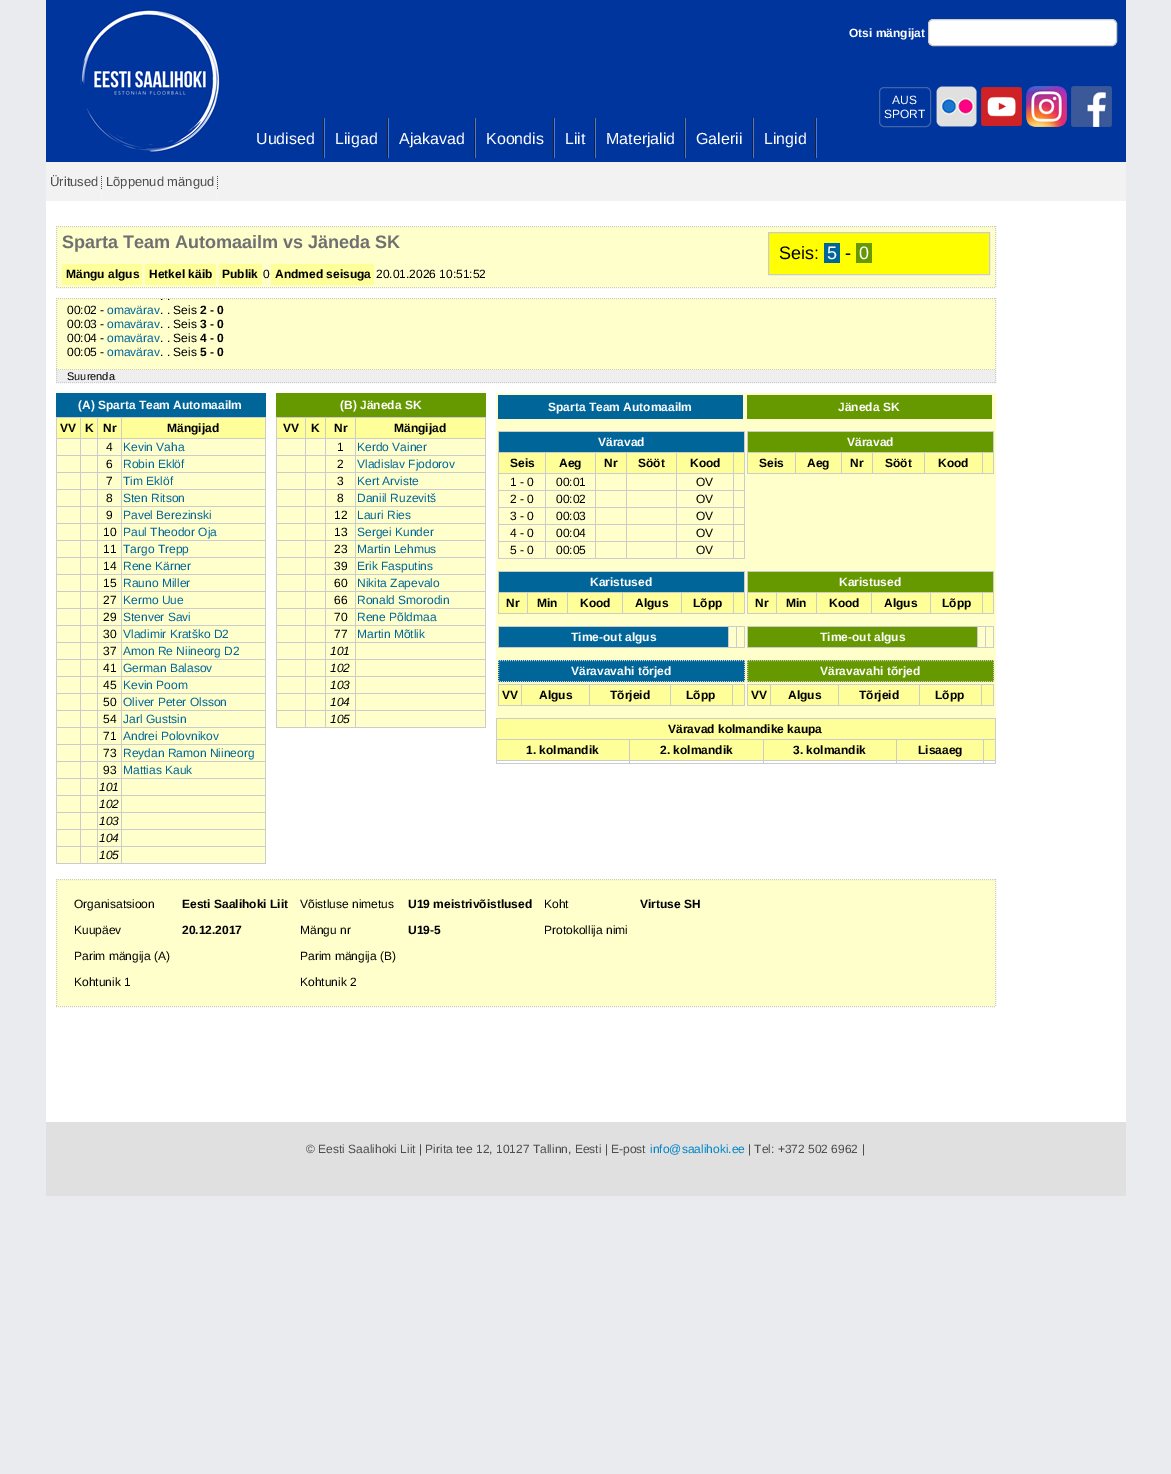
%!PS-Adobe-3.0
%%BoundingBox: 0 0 1171 1474
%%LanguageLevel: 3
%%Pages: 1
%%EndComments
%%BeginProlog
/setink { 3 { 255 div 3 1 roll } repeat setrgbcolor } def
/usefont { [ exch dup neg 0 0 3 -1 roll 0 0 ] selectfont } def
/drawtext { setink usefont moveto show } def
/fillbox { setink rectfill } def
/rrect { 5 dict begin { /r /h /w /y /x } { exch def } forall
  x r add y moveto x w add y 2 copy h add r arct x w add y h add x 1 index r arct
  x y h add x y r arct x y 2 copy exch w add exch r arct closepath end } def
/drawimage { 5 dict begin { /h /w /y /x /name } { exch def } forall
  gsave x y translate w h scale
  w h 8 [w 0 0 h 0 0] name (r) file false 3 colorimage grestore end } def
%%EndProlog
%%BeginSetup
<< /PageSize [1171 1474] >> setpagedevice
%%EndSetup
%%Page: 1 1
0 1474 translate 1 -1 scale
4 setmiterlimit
0 0 1171 1474 233 235 238 fillbox
46 201 1080 921 255 255 255 fillbox
46 0 1080 162 0 53 157 fillbox
(assets/img1.rgb) 80 9 140 144 drawimage
(Otsi mängijat) 849 37 /LiberationSans-Bold 12 255 255 255 drawtext
928.5 19.5 188 26 4.5 rrect gsave fill grestore
204 204 204 setink
stroke
67 100 167 setink
879.5 87.5 51 39 4.5 rrect stroke
(AUS) 892 104 /LiberationSans-Regular 12 255 255 255 drawtext
(SPORT) 884 118 /LiberationSans-Regular 12 255 255 255 drawtext
(assets/img2.rgb) 936 86 41 41 drawimage
(assets/img3.rgb) 981 87 41 40 drawimage
(assets/img4.rgb) 1026 86 41 41 drawimage
(assets/img5.rgb) 1071 86 41 41 drawimage
(assets/img6.rgb) 323 118 1 40 drawimage
324 118 1 40 68 122 228 fillbox
(Uudised) 256 144 /LiberationSans-Regular 16 255 255 255 drawtext
(assets/img6.rgb) 387 118 1 40 drawimage
388 118 1 40 68 122 228 fillbox
(Liigad) 335 144 /LiberationSans-Regular 16 255 255 255 drawtext
(assets/img6.rgb) 474 118 1 40 drawimage
475 118 1 40 68 122 228 fillbox
(Ajakavad) 399 144 /LiberationSans-Regular 16 255 255 255 drawtext
(assets/img6.rgb) 553 118 1 40 drawimage
554 118 1 40 68 122 228 fillbox
(Koondis) 486 144 /LiberationSans-Regular 16 255 255 255 drawtext
(assets/img6.rgb) 594 118 1 40 drawimage
595 118 1 40 68 122 228 fillbox
(Liit) 565 144 /LiberationSans-Regular 16 255 255 255 drawtext
(assets/img6.rgb) 684 118 1 40 drawimage
685 118 1 40 68 122 228 fillbox
(Materjalid) 606 144 /LiberationSans-Regular 16 255 255 255 drawtext
(assets/img6.rgb) 752 118 1 40 drawimage
753 118 1 40 68 122 228 fillbox
(Galerii) 696 144 /LiberationSans-Regular 16 255 255 255 drawtext
(assets/img6.rgb) 815 118 1 40 drawimage
816 118 1 40 68 122 228 fillbox
(Lingid) 764 144 /LiberationSans-Regular 16 255 255 255 drawtext
46 162 1080 39 242 242 242 fillbox
(assets/img7.rgb) 101 176 1 23 drawimage
(Üritused) 50 186 /LiberationSans-Regular 13 76 77 78 drawtext
(assets/img7.rgb) 217 176 1 23 drawimage
(Lõppenud mängud) 106 186 /LiberationSans-Regular 13 76 77 78 drawtext
56 226 940 62 255 255 204 fillbox
204 204 204 setink
[1 1] 0 setdash
56 226.5 moveto 996 226.5 lineto stroke
995.5 226 moveto 995.5 288 lineto stroke
56 287.5 moveto 996 287.5 lineto stroke
56.5 226 moveto 56.5 288 lineto stroke
(Sparta Team Automaailm vs Jäneda SK) 62 248 /LiberationSans-Bold 18 111 112 113 drawtext
62 264 80 21 255 255 153 fillbox
(Mängu algus) 66 278 /LiberationSans-Bold 12 0 0 0 drawtext
145 264 71 21 255 255 153 fillbox
(Hetkel käib) 149 278 /LiberationSans-Bold 12 0 0 0 drawtext
219 264 43 21 255 255 153 fillbox
(Publik) 222 278 /LiberationSans-Bold 12 0 0 0 drawtext
(0) 263 278 /LiberationSans-Regular 12 0 0 0 drawtext
271 264 103 21 255 255 153 fillbox
(Andmed seisuga) 275 278 /LiberationSans-Bold 12 0 0 0 drawtext
(20.01.2026 10:51:52) 376 278 /LiberationSans-Regular 12 0 0 0 drawtext
255 255 0 setink
768.5 232.5 moveto 989.5 232.5 lineto 989.5 274.5 lineto 768.5 274.5 lineto closepath gsave fill grestore
204 204 204 setink
[] 0 setdash
stroke
(Seis:) 779 259 /LiberationSans-Regular 18 0 0 0 drawtext
824 243 16 20 0 102 153 fillbox
(5) 827 259 /LiberationSans-Regular 18 255 255 255 drawtext
(-) 845 259 /LiberationSans-Regular 18 0 0 0 drawtext
856 243 16 20 102 153 0 fillbox
(0) 859 259 /LiberationSans-Regular 18 255 255 255 drawtext
56 298 940 72 255 255 204 fillbox
204 204 204 setink
[1 1] 0 setdash
56 298.5 moveto 996 298.5 lineto stroke
995.5 298 moveto 995.5 370 lineto stroke
56 369.5 moveto 996 369.5 lineto stroke
56.5 298 moveto 56.5 370 lineto stroke
gsave
57 299 938 70 rectclip
(. .) 160 300 /LiberationSans-Regular 12 0 0 0 drawtext
grestore
(00:02 -) 67 314 /LiberationSans-Regular 12 0 0 0 drawtext
(omavärav) 107 314 /LiberationSans-Regular 12 0 102 153 drawtext
(. . Seis) 160 314 /LiberationSans-Regular 12 0 0 0 drawtext
(2 - 0) 200 314 /LiberationSans-Bold 12 0 0 0 drawtext
(00:03 -) 67 328 /LiberationSans-Regular 12 0 0 0 drawtext
(omavärav) 107 328 /LiberationSans-Regular 12 0 102 153 drawtext
(. . Seis) 160 328 /LiberationSans-Regular 12 0 0 0 drawtext
(3 - 0) 200 328 /LiberationSans-Bold 12 0 0 0 drawtext
(00:04 -) 67 342 /LiberationSans-Regular 12 0 0 0 drawtext
(omavärav) 107 342 /LiberationSans-Regular 12 0 102 153 drawtext
(. . Seis) 160 342 /LiberationSans-Regular 12 0 0 0 drawtext
(4 - 0) 200 342 /LiberationSans-Bold 12 0 0 0 drawtext
(00:05 -) 67 356 /LiberationSans-Regular 12 0 0 0 drawtext
(omavärav) 107 356 /LiberationSans-Regular 12 0 102 153 drawtext
(. . Seis) 160 356 /LiberationSans-Regular 12 0 0 0 drawtext
(5 - 0) 200 356 /LiberationSans-Bold 12 0 0 0 drawtext
56 370 940 13 238 238 238 fillbox
204 204 204 setink
995.5 370 moveto 995.5 383 lineto stroke
56 382.5 moveto 996 382.5 lineto stroke
56.5 370 moveto 56.5 383 lineto stroke
(Suurenda) 67 380 /LiberationSans-Regular 11 0 0 0 drawtext
57 439 208 424 255 255 204 fillbox
56 393 210 24 0 102 153 fillbox
(\(A\) Sparta Team Automaailm) 78 409 /LiberationSans-Bold 12 255 255 255 drawtext
57 418 23 20 255 255 153 fillbox
121 417 145 1 204 204 204 fillbox
121 438 145 1 204 204 204 fillbox
121 455 145 1 204 204 204 fillbox
121 472 145 1 204 204 204 fillbox
121 489 145 1 204 204 204 fillbox
121 506 145 1 204 204 204 fillbox
121 523 145 1 204 204 204 fillbox
121 540 145 1 204 204 204 fillbox
121 557 145 1 204 204 204 fillbox
121 574 145 1 204 204 204 fillbox
121 591 145 1 204 204 204 fillbox
121 608 145 1 204 204 204 fillbox
121 625 145 1 204 204 204 fillbox
121 642 145 1 204 204 204 fillbox
121 659 145 1 204 204 204 fillbox
121 676 145 1 204 204 204 fillbox
121 693 145 1 204 204 204 fillbox
121 710 145 1 204 204 204 fillbox
121 727 145 1 204 204 204 fillbox
121 744 145 1 204 204 204 fillbox
121 761 145 1 204 204 204 fillbox
121 778 145 1 204 204 204 fillbox
121 795 145 1 204 204 204 fillbox
121 812 145 1 204 204 204 fillbox
121 829 145 1 204 204 204 fillbox
121 846 145 1 204 204 204 fillbox
265 846 1 18 204 204 204 fillbox
121 863 145 1 204 204 204 fillbox
121 846 1 18 204 204 204 fillbox
97 846 25 1 204 204 204 fillbox
121 829 1 18 204 204 204 fillbox
97 829 25 1 204 204 204 fillbox
121 812 1 18 204 204 204 fillbox
97 812 25 1 204 204 204 fillbox
121 795 1 18 204 204 204 fillbox
97 795 25 1 204 204 204 fillbox
121 778 1 18 204 204 204 fillbox
97 778 25 1 204 204 204 fillbox
121 761 1 18 204 204 204 fillbox
97 761 25 1 204 204 204 fillbox
121 744 1 18 204 204 204 fillbox
97 744 25 1 204 204 204 fillbox
121 727 1 18 204 204 204 fillbox
97 727 25 1 204 204 204 fillbox
121 710 1 18 204 204 204 fillbox
97 710 25 1 204 204 204 fillbox
121 693 1 18 204 204 204 fillbox
97 693 25 1 204 204 204 fillbox
121 676 1 18 204 204 204 fillbox
97 676 25 1 204 204 204 fillbox
121 659 1 18 204 204 204 fillbox
97 659 25 1 204 204 204 fillbox
121 642 1 18 204 204 204 fillbox
97 642 25 1 204 204 204 fillbox
121 625 1 18 204 204 204 fillbox
97 625 25 1 204 204 204 fillbox
121 608 1 18 204 204 204 fillbox
97 608 25 1 204 204 204 fillbox
121 591 1 18 204 204 204 fillbox
97 591 25 1 204 204 204 fillbox
121 574 1 18 204 204 204 fillbox
97 574 25 1 204 204 204 fillbox
121 557 1 18 204 204 204 fillbox
97 557 25 1 204 204 204 fillbox
121 540 1 18 204 204 204 fillbox
97 540 25 1 204 204 204 fillbox
121 523 1 18 204 204 204 fillbox
97 523 25 1 204 204 204 fillbox
121 506 1 18 204 204 204 fillbox
97 506 25 1 204 204 204 fillbox
121 489 1 18 204 204 204 fillbox
97 489 25 1 204 204 204 fillbox
121 472 1 18 204 204 204 fillbox
97 472 25 1 204 204 204 fillbox
121 455 1 18 204 204 204 fillbox
97 455 25 1 204 204 204 fillbox
121 438 1 18 204 204 204 fillbox
97 438 25 1 204 204 204 fillbox
121 417 1 22 204 204 204 fillbox
97 417 25 1 204 204 204 fillbox
97 863 25 1 204 204 204 fillbox
97 846 1 18 204 204 204 fillbox
80 846 18 1 204 204 204 fillbox
97 829 1 18 204 204 204 fillbox
80 829 18 1 204 204 204 fillbox
97 812 1 18 204 204 204 fillbox
80 812 18 1 204 204 204 fillbox
97 795 1 18 204 204 204 fillbox
80 795 18 1 204 204 204 fillbox
97 778 1 18 204 204 204 fillbox
80 778 18 1 204 204 204 fillbox
97 761 1 18 204 204 204 fillbox
80 761 18 1 204 204 204 fillbox
97 744 1 18 204 204 204 fillbox
80 744 18 1 204 204 204 fillbox
97 727 1 18 204 204 204 fillbox
80 727 18 1 204 204 204 fillbox
97 710 1 18 204 204 204 fillbox
80 710 18 1 204 204 204 fillbox
97 693 1 18 204 204 204 fillbox
80 693 18 1 204 204 204 fillbox
97 676 1 18 204 204 204 fillbox
80 676 18 1 204 204 204 fillbox
97 659 1 18 204 204 204 fillbox
80 659 18 1 204 204 204 fillbox
97 642 1 18 204 204 204 fillbox
80 642 18 1 204 204 204 fillbox
97 625 1 18 204 204 204 fillbox
80 625 18 1 204 204 204 fillbox
97 608 1 18 204 204 204 fillbox
80 608 18 1 204 204 204 fillbox
97 591 1 18 204 204 204 fillbox
80 591 18 1 204 204 204 fillbox
97 574 1 18 204 204 204 fillbox
80 574 18 1 204 204 204 fillbox
97 557 1 18 204 204 204 fillbox
80 557 18 1 204 204 204 fillbox
97 540 1 18 204 204 204 fillbox
80 540 18 1 204 204 204 fillbox
97 523 1 18 204 204 204 fillbox
80 523 18 1 204 204 204 fillbox
97 506 1 18 204 204 204 fillbox
80 506 18 1 204 204 204 fillbox
97 489 1 18 204 204 204 fillbox
80 489 18 1 204 204 204 fillbox
97 472 1 18 204 204 204 fillbox
80 472 18 1 204 204 204 fillbox
97 455 1 18 204 204 204 fillbox
80 455 18 1 204 204 204 fillbox
97 438 1 18 204 204 204 fillbox
80 438 18 1 204 204 204 fillbox
97 417 1 22 204 204 204 fillbox
80 417 18 1 204 204 204 fillbox
80 863 18 1 204 204 204 fillbox
80 846 1 18 204 204 204 fillbox
56 846 25 1 204 204 204 fillbox
80 829 1 18 204 204 204 fillbox
56 829 25 1 204 204 204 fillbox
80 812 1 18 204 204 204 fillbox
56 812 25 1 204 204 204 fillbox
80 795 1 18 204 204 204 fillbox
56 795 25 1 204 204 204 fillbox
80 778 1 18 204 204 204 fillbox
56 778 25 1 204 204 204 fillbox
80 761 1 18 204 204 204 fillbox
56 761 25 1 204 204 204 fillbox
80 744 1 18 204 204 204 fillbox
56 744 25 1 204 204 204 fillbox
80 727 1 18 204 204 204 fillbox
56 727 25 1 204 204 204 fillbox
80 710 1 18 204 204 204 fillbox
56 710 25 1 204 204 204 fillbox
80 693 1 18 204 204 204 fillbox
56 693 25 1 204 204 204 fillbox
80 676 1 18 204 204 204 fillbox
56 676 25 1 204 204 204 fillbox
80 659 1 18 204 204 204 fillbox
56 659 25 1 204 204 204 fillbox
80 642 1 18 204 204 204 fillbox
56 642 25 1 204 204 204 fillbox
80 625 1 18 204 204 204 fillbox
56 625 25 1 204 204 204 fillbox
80 608 1 18 204 204 204 fillbox
56 608 25 1 204 204 204 fillbox
80 591 1 18 204 204 204 fillbox
56 591 25 1 204 204 204 fillbox
80 574 1 18 204 204 204 fillbox
56 574 25 1 204 204 204 fillbox
80 557 1 18 204 204 204 fillbox
56 557 25 1 204 204 204 fillbox
80 540 1 18 204 204 204 fillbox
56 540 25 1 204 204 204 fillbox
80 523 1 18 204 204 204 fillbox
56 523 25 1 204 204 204 fillbox
80 506 1 18 204 204 204 fillbox
56 506 25 1 204 204 204 fillbox
80 489 1 18 204 204 204 fillbox
56 489 25 1 204 204 204 fillbox
80 472 1 18 204 204 204 fillbox
56 472 25 1 204 204 204 fillbox
80 455 1 18 204 204 204 fillbox
56 455 25 1 204 204 204 fillbox
80 438 1 18 204 204 204 fillbox
56 438 25 1 204 204 204 fillbox
80 417 1 22 204 204 204 fillbox
56 417 25 1 204 204 204 fillbox
56 863 25 1 204 204 204 fillbox
56 846 1 18 204 204 204 fillbox
56 829 1 18 204 204 204 fillbox
56 812 1 18 204 204 204 fillbox
56 795 1 18 204 204 204 fillbox
56 778 1 18 204 204 204 fillbox
56 761 1 18 204 204 204 fillbox
56 744 1 18 204 204 204 fillbox
56 727 1 18 204 204 204 fillbox
56 710 1 18 204 204 204 fillbox
56 693 1 18 204 204 204 fillbox
56 676 1 18 204 204 204 fillbox
56 659 1 18 204 204 204 fillbox
56 642 1 18 204 204 204 fillbox
56 625 1 18 204 204 204 fillbox
56 608 1 18 204 204 204 fillbox
56 591 1 18 204 204 204 fillbox
56 574 1 18 204 204 204 fillbox
56 557 1 18 204 204 204 fillbox
56 540 1 18 204 204 204 fillbox
56 523 1 18 204 204 204 fillbox
56 506 1 18 204 204 204 fillbox
56 489 1 18 204 204 204 fillbox
56 472 1 18 204 204 204 fillbox
56 455 1 18 204 204 204 fillbox
56 438 1 18 204 204 204 fillbox
56 417 1 22 204 204 204 fillbox
(VV) 60 432 /LiberationSans-Bold 12 0 0 0 drawtext
81 418 16 20 255 255 153 fillbox
(K) 85 432 /LiberationSans-Bold 12 0 0 0 drawtext
98 418 23 20 255 255 153 fillbox
(Nr) 103 432 /LiberationSans-Bold 12 0 0 0 drawtext
122 418 143 20 255 255 153 fillbox
265 829 1 18 204 204 204 fillbox
265 812 1 18 204 204 204 fillbox
265 795 1 18 204 204 204 fillbox
265 778 1 18 204 204 204 fillbox
265 761 1 18 204 204 204 fillbox
265 744 1 18 204 204 204 fillbox
265 727 1 18 204 204 204 fillbox
265 710 1 18 204 204 204 fillbox
265 693 1 18 204 204 204 fillbox
265 676 1 18 204 204 204 fillbox
265 659 1 18 204 204 204 fillbox
265 642 1 18 204 204 204 fillbox
265 625 1 18 204 204 204 fillbox
265 608 1 18 204 204 204 fillbox
265 591 1 18 204 204 204 fillbox
265 574 1 18 204 204 204 fillbox
265 557 1 18 204 204 204 fillbox
265 540 1 18 204 204 204 fillbox
265 523 1 18 204 204 204 fillbox
265 506 1 18 204 204 204 fillbox
265 489 1 18 204 204 204 fillbox
265 472 1 18 204 204 204 fillbox
265 455 1 18 204 204 204 fillbox
265 438 1 18 204 204 204 fillbox
265 417 1 22 204 204 204 fillbox
(Mängijad) 167 432 /LiberationSans-Bold 12 0 0 0 drawtext
(4) 106 451 /LiberationSans-Regular 12 0 0 0 drawtext
(Kevin Vaha) 123 451 /LiberationSans-Regular 12 0 102 153 drawtext
(6) 106 468 /LiberationSans-Regular 12 0 0 0 drawtext
(Robin Eklöf) 123 468 /LiberationSans-Regular 12 0 102 153 drawtext
(7) 106 485 /LiberationSans-Regular 12 0 0 0 drawtext
(Tim Eklöf) 123 485 /LiberationSans-Regular 12 0 102 153 drawtext
(8) 106 502 /LiberationSans-Regular 12 0 0 0 drawtext
(Sten Ritson) 123 502 /LiberationSans-Regular 12 0 102 153 drawtext
(9) 106 519 /LiberationSans-Regular 12 0 0 0 drawtext
(Pavel Berezinski) 123 519 /LiberationSans-Regular 12 0 102 153 drawtext
(10) 103 536 /LiberationSans-Regular 12 0 0 0 drawtext
(Paul Theodor Oja) 123 536 /LiberationSans-Regular 12 0 102 153 drawtext
(11) 103 553 /LiberationSans-Regular 12 0 0 0 drawtext
(Targo Trepp) 123 553 /LiberationSans-Regular 12 0 102 153 drawtext
(14) 103 570 /LiberationSans-Regular 12 0 0 0 drawtext
(Rene Kärner) 123 570 /LiberationSans-Regular 12 0 102 153 drawtext
(15) 103 587 /LiberationSans-Regular 12 0 0 0 drawtext
(Rauno Miller) 123 587 /LiberationSans-Regular 12 0 102 153 drawtext
(27) 103 604 /LiberationSans-Regular 12 0 0 0 drawtext
(Kermo Uue) 123 604 /LiberationSans-Regular 12 0 102 153 drawtext
(29) 103 621 /LiberationSans-Regular 12 0 0 0 drawtext
(Stenver Savi) 123 621 /LiberationSans-Regular 12 0 102 153 drawtext
(30) 103 638 /LiberationSans-Regular 12 0 0 0 drawtext
(Vladimir Kratško D2) 123 638 /LiberationSans-Regular 12 0 102 153 drawtext
(37) 103 655 /LiberationSans-Regular 12 0 0 0 drawtext
(Amon Re Niineorg D2) 123 655 /LiberationSans-Regular 12 0 102 153 drawtext
(41) 103 672 /LiberationSans-Regular 12 0 0 0 drawtext
(German Balasov) 123 672 /LiberationSans-Regular 12 0 102 153 drawtext
(45) 103 689 /LiberationSans-Regular 12 0 0 0 drawtext
(Kevin Poom) 123 689 /LiberationSans-Regular 12 0 102 153 drawtext
(50) 103 706 /LiberationSans-Regular 12 0 0 0 drawtext
(Oliver Peter Olsson) 123 706 /LiberationSans-Regular 12 0 102 153 drawtext
(54) 103 723 /LiberationSans-Regular 12 0 0 0 drawtext
(Jarl Gustsin) 123 723 /LiberationSans-Regular 12 0 102 153 drawtext
(71) 103 740 /LiberationSans-Regular 12 0 0 0 drawtext
(Andrei Polovnikov) 123 740 /LiberationSans-Regular 12 0 102 153 drawtext
(73) 103 757 /LiberationSans-Regular 12 0 0 0 drawtext
(Reydan Ramon Niineorg) 123 757 /LiberationSans-Regular 12 0 102 153 drawtext
(93) 103 774 /LiberationSans-Regular 12 0 0 0 drawtext
(Mattias Kauk) 123 774 /LiberationSans-Regular 12 0 102 153 drawtext
(101) 99 791 /LiberationSans-Italic 12 0 0 0 drawtext
(102) 99 808 /LiberationSans-Italic 12 0 0 0 drawtext
(103) 99 825 /LiberationSans-Italic 12 0 0 0 drawtext
(104) 99 842 /LiberationSans-Italic 12 0 0 0 drawtext
(105) 99 859 /LiberationSans-Italic 12 0 0 0 drawtext
277 439 208 288 255 255 204 fillbox
276 393 210 24 102 153 0 fillbox
(\(B\) Jäneda SK) 340 409 /LiberationSans-Bold 12 255 255 255 drawtext
277 418 28 20 255 255 153 fillbox
355 417 131 1 204 204 204 fillbox
355 438 131 1 204 204 204 fillbox
355 455 131 1 204 204 204 fillbox
355 472 131 1 204 204 204 fillbox
355 489 131 1 204 204 204 fillbox
355 506 131 1 204 204 204 fillbox
355 523 131 1 204 204 204 fillbox
355 540 131 1 204 204 204 fillbox
355 557 131 1 204 204 204 fillbox
355 574 131 1 204 204 204 fillbox
355 591 131 1 204 204 204 fillbox
355 608 131 1 204 204 204 fillbox
355 625 131 1 204 204 204 fillbox
355 642 131 1 204 204 204 fillbox
355 659 131 1 204 204 204 fillbox
355 676 131 1 204 204 204 fillbox
355 693 131 1 204 204 204 fillbox
355 710 131 1 204 204 204 fillbox
485 710 1 18 204 204 204 fillbox
355 727 131 1 204 204 204 fillbox
355 710 1 18 204 204 204 fillbox
325 710 31 1 204 204 204 fillbox
355 693 1 18 204 204 204 fillbox
325 693 31 1 204 204 204 fillbox
355 676 1 18 204 204 204 fillbox
325 676 31 1 204 204 204 fillbox
355 659 1 18 204 204 204 fillbox
325 659 31 1 204 204 204 fillbox
355 642 1 18 204 204 204 fillbox
325 642 31 1 204 204 204 fillbox
355 625 1 18 204 204 204 fillbox
325 625 31 1 204 204 204 fillbox
355 608 1 18 204 204 204 fillbox
325 608 31 1 204 204 204 fillbox
355 591 1 18 204 204 204 fillbox
325 591 31 1 204 204 204 fillbox
355 574 1 18 204 204 204 fillbox
325 574 31 1 204 204 204 fillbox
355 557 1 18 204 204 204 fillbox
325 557 31 1 204 204 204 fillbox
355 540 1 18 204 204 204 fillbox
325 540 31 1 204 204 204 fillbox
355 523 1 18 204 204 204 fillbox
325 523 31 1 204 204 204 fillbox
355 506 1 18 204 204 204 fillbox
325 506 31 1 204 204 204 fillbox
355 489 1 18 204 204 204 fillbox
325 489 31 1 204 204 204 fillbox
355 472 1 18 204 204 204 fillbox
325 472 31 1 204 204 204 fillbox
355 455 1 18 204 204 204 fillbox
325 455 31 1 204 204 204 fillbox
355 438 1 18 204 204 204 fillbox
325 438 31 1 204 204 204 fillbox
355 417 1 22 204 204 204 fillbox
325 417 31 1 204 204 204 fillbox
325 727 31 1 204 204 204 fillbox
325 710 1 18 204 204 204 fillbox
305 710 21 1 204 204 204 fillbox
325 693 1 18 204 204 204 fillbox
305 693 21 1 204 204 204 fillbox
325 676 1 18 204 204 204 fillbox
305 676 21 1 204 204 204 fillbox
325 659 1 18 204 204 204 fillbox
305 659 21 1 204 204 204 fillbox
325 642 1 18 204 204 204 fillbox
305 642 21 1 204 204 204 fillbox
325 625 1 18 204 204 204 fillbox
305 625 21 1 204 204 204 fillbox
325 608 1 18 204 204 204 fillbox
305 608 21 1 204 204 204 fillbox
325 591 1 18 204 204 204 fillbox
305 591 21 1 204 204 204 fillbox
325 574 1 18 204 204 204 fillbox
305 574 21 1 204 204 204 fillbox
325 557 1 18 204 204 204 fillbox
305 557 21 1 204 204 204 fillbox
325 540 1 18 204 204 204 fillbox
305 540 21 1 204 204 204 fillbox
325 523 1 18 204 204 204 fillbox
305 523 21 1 204 204 204 fillbox
325 506 1 18 204 204 204 fillbox
305 506 21 1 204 204 204 fillbox
325 489 1 18 204 204 204 fillbox
305 489 21 1 204 204 204 fillbox
325 472 1 18 204 204 204 fillbox
305 472 21 1 204 204 204 fillbox
325 455 1 18 204 204 204 fillbox
305 455 21 1 204 204 204 fillbox
325 438 1 18 204 204 204 fillbox
305 438 21 1 204 204 204 fillbox
325 417 1 22 204 204 204 fillbox
305 417 21 1 204 204 204 fillbox
305 727 21 1 204 204 204 fillbox
305 710 1 18 204 204 204 fillbox
276 710 30 1 204 204 204 fillbox
305 693 1 18 204 204 204 fillbox
276 693 30 1 204 204 204 fillbox
305 676 1 18 204 204 204 fillbox
276 676 30 1 204 204 204 fillbox
305 659 1 18 204 204 204 fillbox
276 659 30 1 204 204 204 fillbox
305 642 1 18 204 204 204 fillbox
276 642 30 1 204 204 204 fillbox
305 625 1 18 204 204 204 fillbox
276 625 30 1 204 204 204 fillbox
305 608 1 18 204 204 204 fillbox
276 608 30 1 204 204 204 fillbox
305 591 1 18 204 204 204 fillbox
276 591 30 1 204 204 204 fillbox
305 574 1 18 204 204 204 fillbox
276 574 30 1 204 204 204 fillbox
305 557 1 18 204 204 204 fillbox
276 557 30 1 204 204 204 fillbox
305 540 1 18 204 204 204 fillbox
276 540 30 1 204 204 204 fillbox
305 523 1 18 204 204 204 fillbox
276 523 30 1 204 204 204 fillbox
305 506 1 18 204 204 204 fillbox
276 506 30 1 204 204 204 fillbox
305 489 1 18 204 204 204 fillbox
276 489 30 1 204 204 204 fillbox
305 472 1 18 204 204 204 fillbox
276 472 30 1 204 204 204 fillbox
305 455 1 18 204 204 204 fillbox
276 455 30 1 204 204 204 fillbox
305 438 1 18 204 204 204 fillbox
276 438 30 1 204 204 204 fillbox
305 417 1 22 204 204 204 fillbox
276 417 30 1 204 204 204 fillbox
276 727 30 1 204 204 204 fillbox
276 710 1 18 204 204 204 fillbox
276 693 1 18 204 204 204 fillbox
276 676 1 18 204 204 204 fillbox
276 659 1 18 204 204 204 fillbox
276 642 1 18 204 204 204 fillbox
276 625 1 18 204 204 204 fillbox
276 608 1 18 204 204 204 fillbox
276 591 1 18 204 204 204 fillbox
276 574 1 18 204 204 204 fillbox
276 557 1 18 204 204 204 fillbox
276 540 1 18 204 204 204 fillbox
276 523 1 18 204 204 204 fillbox
276 506 1 18 204 204 204 fillbox
276 489 1 18 204 204 204 fillbox
276 472 1 18 204 204 204 fillbox
276 455 1 18 204 204 204 fillbox
276 438 1 18 204 204 204 fillbox
276 417 1 22 204 204 204 fillbox
(VV) 283 432 /LiberationSans-Bold 12 0 0 0 drawtext
306 418 19 20 255 255 153 fillbox
(K) 311 432 /LiberationSans-Bold 12 0 0 0 drawtext
326 418 29 20 255 255 153 fillbox
(Nr) 334 432 /LiberationSans-Bold 12 0 0 0 drawtext
356 418 129 20 255 255 153 fillbox
485 693 1 18 204 204 204 fillbox
485 676 1 18 204 204 204 fillbox
485 659 1 18 204 204 204 fillbox
485 642 1 18 204 204 204 fillbox
485 625 1 18 204 204 204 fillbox
485 608 1 18 204 204 204 fillbox
485 591 1 18 204 204 204 fillbox
485 574 1 18 204 204 204 fillbox
485 557 1 18 204 204 204 fillbox
485 540 1 18 204 204 204 fillbox
485 523 1 18 204 204 204 fillbox
485 506 1 18 204 204 204 fillbox
485 489 1 18 204 204 204 fillbox
485 472 1 18 204 204 204 fillbox
485 455 1 18 204 204 204 fillbox
485 438 1 18 204 204 204 fillbox
485 417 1 22 204 204 204 fillbox
(Mängijad) 394 432 /LiberationSans-Bold 12 0 0 0 drawtext
(1) 337 451 /LiberationSans-Regular 12 0 0 0 drawtext
(Kerdo Vainer) 357 451 /LiberationSans-Regular 12 0 102 153 drawtext
(2) 337 468 /LiberationSans-Regular 12 0 0 0 drawtext
(Vladislav Fjodorov) 357 468 /LiberationSans-Regular 12 0 102 153 drawtext
(3) 337 485 /LiberationSans-Regular 12 0 0 0 drawtext
(Kert Arviste) 357 485 /LiberationSans-Regular 12 0 102 153 drawtext
(8) 337 502 /LiberationSans-Regular 12 0 0 0 drawtext
(Daniil Ruzevitš) 357 502 /LiberationSans-Regular 12 0 102 153 drawtext
(12) 334 519 /LiberationSans-Regular 12 0 0 0 drawtext
(Lauri Ries) 357 519 /LiberationSans-Regular 12 0 102 153 drawtext
(13) 334 536 /LiberationSans-Regular 12 0 0 0 drawtext
(Sergei Kunder) 357 536 /LiberationSans-Regular 12 0 102 153 drawtext
(23) 334 553 /LiberationSans-Regular 12 0 0 0 drawtext
(Martin Lehmus) 357 553 /LiberationSans-Regular 12 0 102 153 drawtext
(39) 334 570 /LiberationSans-Regular 12 0 0 0 drawtext
(Erik Fasputins) 357 570 /LiberationSans-Regular 12 0 102 153 drawtext
(60) 334 587 /LiberationSans-Regular 12 0 0 0 drawtext
(Nikita Zapevalo) 357 587 /LiberationSans-Regular 12 0 102 153 drawtext
(66) 334 604 /LiberationSans-Regular 12 0 0 0 drawtext
(Ronald Smorodin) 357 604 /LiberationSans-Regular 12 0 102 153 drawtext
(70) 334 621 /LiberationSans-Regular 12 0 0 0 drawtext
(Rene Põldmaa) 357 621 /LiberationSans-Regular 12 0 102 153 drawtext
(77) 334 638 /LiberationSans-Regular 12 0 0 0 drawtext
(Martin Mõtlik) 357 638 /LiberationSans-Regular 12 0 102 153 drawtext
(101) 330 655 /LiberationSans-Italic 12 0 0 0 drawtext
(102) 330 672 /LiberationSans-Italic 12 0 0 0 drawtext
(103) 330 689 /LiberationSans-Italic 12 0 0 0 drawtext
(104) 330 706 /LiberationSans-Italic 12 0 0 0 drawtext
(105) 330 723 /LiberationSans-Italic 12 0 0 0 drawtext
496 393 500 325 255 255 204 fillbox
498 395 245 24 0 102 153 fillbox
(Sparta Team Automaailm) 548 411 /LiberationSans-Bold 12 255 255 255 drawtext
747 395 245 24 102 153 0 fillbox
(Jäneda SK) 838 411 /LiberationSans-Bold 12 255 255 255 drawtext
499 432 245 20 0 102 153 fillbox
498 431 247 1 204 204 204 fillbox
733 452 12 1 204 204 204 fillbox
733 473 12 1 204 204 204 fillbox
733 490 12 1 204 204 204 fillbox
733 507 12 1 204 204 204 fillbox
733 524 12 1 204 204 204 fillbox
733 541 12 1 204 204 204 fillbox
744 541 1 18 204 204 204 fillbox
744 524 1 18 204 204 204 fillbox
744 507 1 18 204 204 204 fillbox
744 490 1 18 204 204 204 fillbox
744 473 1 18 204 204 204 fillbox
744 452 1 22 204 204 204 fillbox
744 431 1 22 204 204 204 fillbox
733 558 12 1 204 204 204 fillbox
733 541 1 18 204 204 204 fillbox
676 541 58 1 204 204 204 fillbox
733 524 1 18 204 204 204 fillbox
676 524 58 1 204 204 204 fillbox
733 507 1 18 204 204 204 fillbox
676 507 58 1 204 204 204 fillbox
733 490 1 18 204 204 204 fillbox
676 490 58 1 204 204 204 fillbox
733 473 1 18 204 204 204 fillbox
676 473 58 1 204 204 204 fillbox
733 452 1 22 204 204 204 fillbox
676 452 58 1 204 204 204 fillbox
676 558 58 1 204 204 204 fillbox
676 541 1 18 204 204 204 fillbox
626 541 51 1 204 204 204 fillbox
676 524 1 18 204 204 204 fillbox
626 524 51 1 204 204 204 fillbox
676 507 1 18 204 204 204 fillbox
626 507 51 1 204 204 204 fillbox
676 490 1 18 204 204 204 fillbox
626 490 51 1 204 204 204 fillbox
676 473 1 18 204 204 204 fillbox
626 473 51 1 204 204 204 fillbox
676 452 1 22 204 204 204 fillbox
626 452 51 1 204 204 204 fillbox
626 558 51 1 204 204 204 fillbox
626 541 1 18 204 204 204 fillbox
595 541 32 1 204 204 204 fillbox
626 524 1 18 204 204 204 fillbox
595 524 32 1 204 204 204 fillbox
626 507 1 18 204 204 204 fillbox
595 507 32 1 204 204 204 fillbox
626 490 1 18 204 204 204 fillbox
595 490 32 1 204 204 204 fillbox
626 473 1 18 204 204 204 fillbox
595 473 32 1 204 204 204 fillbox
626 452 1 22 204 204 204 fillbox
595 452 32 1 204 204 204 fillbox
595 558 32 1 204 204 204 fillbox
595 541 1 18 204 204 204 fillbox
545 541 51 1 204 204 204 fillbox
595 524 1 18 204 204 204 fillbox
545 524 51 1 204 204 204 fillbox
595 507 1 18 204 204 204 fillbox
545 507 51 1 204 204 204 fillbox
595 490 1 18 204 204 204 fillbox
545 490 51 1 204 204 204 fillbox
595 473 1 18 204 204 204 fillbox
545 473 51 1 204 204 204 fillbox
595 452 1 22 204 204 204 fillbox
545 452 51 1 204 204 204 fillbox
545 558 51 1 204 204 204 fillbox
545 541 1 18 204 204 204 fillbox
498 541 48 1 204 204 204 fillbox
545 524 1 18 204 204 204 fillbox
498 524 48 1 204 204 204 fillbox
545 507 1 18 204 204 204 fillbox
498 507 48 1 204 204 204 fillbox
545 490 1 18 204 204 204 fillbox
498 490 48 1 204 204 204 fillbox
545 473 1 18 204 204 204 fillbox
498 473 48 1 204 204 204 fillbox
545 452 1 22 204 204 204 fillbox
498 452 48 1 204 204 204 fillbox
498 558 48 1 204 204 204 fillbox
498 541 1 18 204 204 204 fillbox
498 524 1 18 204 204 204 fillbox
498 507 1 18 204 204 204 fillbox
498 490 1 18 204 204 204 fillbox
498 473 1 18 204 204 204 fillbox
498 452 1 22 204 204 204 fillbox
498 431 1 22 204 204 204 fillbox
(Väravad) 598 446 /LiberationSans-Bold 12 255 255 255 drawtext
499 453 46 20 255 255 153 fillbox
(Seis) 510 467 /LiberationSans-Bold 12 0 0 0 drawtext
546 453 49 20 255 255 153 fillbox
(Aeg) 559 467 /LiberationSans-Bold 12 0 0 0 drawtext
596 453 30 20 255 255 153 fillbox
(Nr) 604 467 /LiberationSans-Bold 12 0 0 0 drawtext
627 453 49 20 255 255 153 fillbox
(Sööt) 638 467 /LiberationSans-Bold 12 0 0 0 drawtext
677 453 56 20 255 255 153 fillbox
(Kood) 690 467 /LiberationSans-Bold 12 0 0 0 drawtext
734 453 10 20 255 255 153 fillbox
(1 - 0) 510 486 /LiberationSans-Regular 12 0 0 0 drawtext
(00:01) 556 486 /LiberationSans-Regular 12 0 0 0 drawtext
(OV) 696 486 /LiberationSans-Regular 12 0 0 0 drawtext
(2 - 0) 510 503 /LiberationSans-Regular 12 0 0 0 drawtext
(00:02) 556 503 /LiberationSans-Regular 12 0 0 0 drawtext
(OV) 696 503 /LiberationSans-Regular 12 0 0 0 drawtext
(3 - 0) 510 520 /LiberationSans-Regular 12 0 0 0 drawtext
(00:03) 556 520 /LiberationSans-Regular 12 0 0 0 drawtext
(OV) 696 520 /LiberationSans-Regular 12 0 0 0 drawtext
(4 - 0) 510 537 /LiberationSans-Regular 12 0 0 0 drawtext
(00:04) 556 537 /LiberationSans-Regular 12 0 0 0 drawtext
(OV) 696 537 /LiberationSans-Regular 12 0 0 0 drawtext
(5 - 0) 510 554 /LiberationSans-Regular 12 0 0 0 drawtext
(00:05) 556 554 /LiberationSans-Regular 12 0 0 0 drawtext
(OV) 696 554 /LiberationSans-Regular 12 0 0 0 drawtext
748 432 245 20 102 153 0 fillbox
747 431 247 1 204 204 204 fillbox
982 452 12 1 204 204 204 fillbox
993 452 1 22 204 204 204 fillbox
993 431 1 22 204 204 204 fillbox
982 473 12 1 204 204 204 fillbox
982 452 1 22 204 204 204 fillbox
924 452 59 1 204 204 204 fillbox
924 473 59 1 204 204 204 fillbox
924 452 1 22 204 204 204 fillbox
872 452 53 1 204 204 204 fillbox
872 473 53 1 204 204 204 fillbox
872 452 1 22 204 204 204 fillbox
841 452 32 1 204 204 204 fillbox
841 473 32 1 204 204 204 fillbox
841 452 1 22 204 204 204 fillbox
795 452 47 1 204 204 204 fillbox
795 473 47 1 204 204 204 fillbox
795 452 1 22 204 204 204 fillbox
747 452 49 1 204 204 204 fillbox
747 473 49 1 204 204 204 fillbox
747 452 1 22 204 204 204 fillbox
747 431 1 22 204 204 204 fillbox
(Väravad) 847 446 /LiberationSans-Bold 12 255 255 255 drawtext
748 453 47 20 255 255 153 fillbox
(Seis) 759 467 /LiberationSans-Bold 12 0 0 0 drawtext
796 453 45 20 255 255 153 fillbox
(Aeg) 807 467 /LiberationSans-Bold 12 0 0 0 drawtext
842 453 30 20 255 255 153 fillbox
(Nr) 850 467 /LiberationSans-Bold 12 0 0 0 drawtext
873 453 51 20 255 255 153 fillbox
(Sööt) 885 467 /LiberationSans-Bold 12 0 0 0 drawtext
925 453 57 20 255 255 153 fillbox
(Kood) 938 467 /LiberationSans-Bold 12 0 0 0 drawtext
983 453 10 20 255 255 153 fillbox
499 572 245 20 0 102 153 fillbox
498 571 247 1 204 204 204 fillbox
733 592 12 1 204 204 204 fillbox
744 592 1 22 204 204 204 fillbox
744 571 1 22 204 204 204 fillbox
733 613 12 1 204 204 204 fillbox
733 592 1 22 204 204 204 fillbox
681 592 53 1 204 204 204 fillbox
681 613 53 1 204 204 204 fillbox
681 592 1 22 204 204 204 fillbox
622 592 60 1 204 204 204 fillbox
622 613 60 1 204 204 204 fillbox
622 592 1 22 204 204 204 fillbox
567 592 56 1 204 204 204 fillbox
567 613 56 1 204 204 204 fillbox
567 592 1 22 204 204 204 fillbox
527 592 41 1 204 204 204 fillbox
527 613 41 1 204 204 204 fillbox
527 592 1 22 204 204 204 fillbox
498 592 30 1 204 204 204 fillbox
498 613 30 1 204 204 204 fillbox
498 592 1 22 204 204 204 fillbox
498 571 1 22 204 204 204 fillbox
(Karistused) 590 586 /LiberationSans-Bold 12 255 255 255 drawtext
499 593 28 20 255 255 153 fillbox
(Nr) 506 607 /LiberationSans-Bold 12 0 0 0 drawtext
528 593 39 20 255 255 153 fillbox
(Min) 537 607 /LiberationSans-Bold 12 0 0 0 drawtext
568 593 54 20 255 255 153 fillbox
(Kood) 580 607 /LiberationSans-Bold 12 0 0 0 drawtext
623 593 58 20 255 255 153 fillbox
(Algus) 635 607 /LiberationSans-Bold 12 0 0 0 drawtext
682 593 51 20 255 255 153 fillbox
(Lõpp) 693 607 /LiberationSans-Bold 12 0 0 0 drawtext
734 593 10 20 255 255 153 fillbox
748 572 245 20 102 153 0 fillbox
747 571 247 1 204 204 204 fillbox
982 592 12 1 204 204 204 fillbox
993 592 1 22 204 204 204 fillbox
993 571 1 22 204 204 204 fillbox
982 613 12 1 204 204 204 fillbox
982 592 1 22 204 204 204 fillbox
930 592 53 1 204 204 204 fillbox
930 613 53 1 204 204 204 fillbox
930 592 1 22 204 204 204 fillbox
871 592 60 1 204 204 204 fillbox
871 613 60 1 204 204 204 fillbox
871 592 1 22 204 204 204 fillbox
816 592 56 1 204 204 204 fillbox
816 613 56 1 204 204 204 fillbox
816 592 1 22 204 204 204 fillbox
776 592 41 1 204 204 204 fillbox
776 613 41 1 204 204 204 fillbox
776 592 1 22 204 204 204 fillbox
747 592 30 1 204 204 204 fillbox
747 613 30 1 204 204 204 fillbox
747 592 1 22 204 204 204 fillbox
747 571 1 22 204 204 204 fillbox
(Karistused) 839 586 /LiberationSans-Bold 12 255 255 255 drawtext
748 593 28 20 255 255 153 fillbox
(Nr) 755 607 /LiberationSans-Bold 12 0 0 0 drawtext
777 593 39 20 255 255 153 fillbox
(Min) 786 607 /LiberationSans-Bold 12 0 0 0 drawtext
817 593 54 20 255 255 153 fillbox
(Kood) 829 607 /LiberationSans-Bold 12 0 0 0 drawtext
872 593 58 20 255 255 153 fillbox
(Algus) 884 607 /LiberationSans-Bold 12 0 0 0 drawtext
931 593 51 20 255 255 153 fillbox
(Lõpp) 942 607 /LiberationSans-Bold 12 0 0 0 drawtext
983 593 10 20 255 255 153 fillbox
499 627 229 20 0 102 153 fillbox
736 626 9 1 204 204 204 fillbox
744 626 1 22 204 204 204 fillbox
736 647 9 1 204 204 204 fillbox
736 626 1 22 204 204 204 fillbox
728 626 9 1 204 204 204 fillbox
728 647 9 1 204 204 204 fillbox
728 626 1 22 204 204 204 fillbox
498 626 231 1 204 204 204 fillbox
498 647 231 1 204 204 204 fillbox
498 626 1 22 204 204 204 fillbox
(Time-out algus) 571 641 /LiberationSans-Bold 12 255 255 255 drawtext
748 627 229 20 102 153 0 fillbox
985 626 9 1 204 204 204 fillbox
993 626 1 22 204 204 204 fillbox
985 647 9 1 204 204 204 fillbox
985 626 1 22 204 204 204 fillbox
977 626 9 1 204 204 204 fillbox
977 647 9 1 204 204 204 fillbox
977 626 1 22 204 204 204 fillbox
747 626 231 1 204 204 204 fillbox
747 647 231 1 204 204 204 fillbox
747 626 1 22 204 204 204 fillbox
(Time-out algus) 820 641 /LiberationSans-Bold 12 255 255 255 drawtext
498 660 247 22 0 102 153 fillbox
204 204 204 setink
498 660.5 moveto 745 660.5 lineto stroke
744.5 660 moveto 744.5 682 lineto stroke
498 681.5 moveto 745 681.5 lineto stroke
498.5 660 moveto 498.5 682 lineto stroke
(Väravavahi tõrjed) 571 675 /LiberationSans-Bold 12 255 255 255 drawtext
747 660 247 22 102 153 0 fillbox
204 204 204 setink
747 660.5 moveto 994 660.5 lineto stroke
993.5 660 moveto 993.5 682 lineto stroke
747 681.5 moveto 994 681.5 lineto stroke
747.5 660 moveto 747.5 682 lineto stroke
(Väravavahi tõrjed) 820 675 /LiberationSans-Bold 12 255 255 255 drawtext
499 685 22 20 255 255 153 fillbox
732 684 13 1 204 204 204 fillbox
744 684 1 22 204 204 204 fillbox
732 705 13 1 204 204 204 fillbox
732 684 1 22 204 204 204 fillbox
670 684 63 1 204 204 204 fillbox
670 705 63 1 204 204 204 fillbox
670 684 1 22 204 204 204 fillbox
589 684 82 1 204 204 204 fillbox
589 705 82 1 204 204 204 fillbox
589 684 1 22 204 204 204 fillbox
521 684 69 1 204 204 204 fillbox
521 705 69 1 204 204 204 fillbox
521 684 1 22 204 204 204 fillbox
498 684 24 1 204 204 204 fillbox
498 705 24 1 204 204 204 fillbox
498 684 1 22 204 204 204 fillbox
(VV) 502 699 /LiberationSans-Bold 12 0 0 0 drawtext
522 685 67 20 255 255 153 fillbox
(Algus) 539 699 /LiberationSans-Bold 12 0 0 0 drawtext
590 685 80 20 255 255 153 fillbox
(Tõrjeid) 610 699 /LiberationSans-Bold 12 0 0 0 drawtext
671 685 61 20 255 255 153 fillbox
(Lõpp) 686 699 /LiberationSans-Bold 12 0 0 0 drawtext
733 685 11 20 255 255 153 fillbox
748 685 22 20 255 255 153 fillbox
981 684 13 1 204 204 204 fillbox
993 684 1 22 204 204 204 fillbox
981 705 13 1 204 204 204 fillbox
981 684 1 22 204 204 204 fillbox
919 684 63 1 204 204 204 fillbox
919 705 63 1 204 204 204 fillbox
919 684 1 22 204 204 204 fillbox
838 684 82 1 204 204 204 fillbox
838 705 82 1 204 204 204 fillbox
838 684 1 22 204 204 204 fillbox
770 684 69 1 204 204 204 fillbox
770 705 69 1 204 204 204 fillbox
770 684 1 22 204 204 204 fillbox
747 684 24 1 204 204 204 fillbox
747 705 24 1 204 204 204 fillbox
747 684 1 22 204 204 204 fillbox
(VV) 751 699 /LiberationSans-Bold 12 0 0 0 drawtext
771 685 67 20 255 255 153 fillbox
(Algus) 788 699 /LiberationSans-Bold 12 0 0 0 drawtext
839 685 80 20 255 255 153 fillbox
(Tõrjeid) 859 699 /LiberationSans-Bold 12 0 0 0 drawtext
920 685 61 20 255 255 153 fillbox
(Lõpp) 935 699 /LiberationSans-Bold 12 0 0 0 drawtext
982 685 11 20 255 255 153 fillbox
497 719 498 20 255 255 153 fillbox
496 718 500 1 204 204 204 fillbox
983 739 13 1 204 204 204 fillbox
983 760 13 1 204 204 204 fillbox
995 760 1 4 204 204 204 fillbox
995 739 1 22 204 204 204 fillbox
995 718 1 22 204 204 204 fillbox
983 763 13 1 204 204 204 fillbox
983 760 1 4 204 204 204 fillbox
896 760 88 1 204 204 204 fillbox
983 739 1 22 204 204 204 fillbox
896 739 88 1 204 204 204 fillbox
896 763 88 1 204 204 204 fillbox
896 760 1 4 204 204 204 fillbox
763 760 134 1 204 204 204 fillbox
896 739 1 22 204 204 204 fillbox
763 739 134 1 204 204 204 fillbox
763 763 134 1 204 204 204 fillbox
763 760 1 4 204 204 204 fillbox
629 760 135 1 204 204 204 fillbox
763 739 1 22 204 204 204 fillbox
629 739 135 1 204 204 204 fillbox
629 763 135 1 204 204 204 fillbox
629 760 1 4 204 204 204 fillbox
496 760 134 1 204 204 204 fillbox
629 739 1 22 204 204 204 fillbox
496 739 134 1 204 204 204 fillbox
496 763 134 1 204 204 204 fillbox
496 760 1 4 204 204 204 fillbox
496 739 1 22 204 204 204 fillbox
496 718 1 22 204 204 204 fillbox
(Väravad kolmandike kaupa) 668 733 /LiberationSans-Bold 12 0 0 0 drawtext
497 740 132 20 255 255 153 fillbox
(1. kolmandik) 526 754 /LiberationSans-Bold 12 0 0 0 drawtext
630 740 133 20 255 255 153 fillbox
(2. kolmandik) 660 754 /LiberationSans-Bold 12 0 0 0 drawtext
764 740 132 20 255 255 153 fillbox
(3. kolmandik) 793 754 /LiberationSans-Bold 12 0 0 0 drawtext
897 740 86 20 255 255 153 fillbox
(Lisaaeg) 918 754 /LiberationSans-Bold 12 0 0 0 drawtext
984 740 11 20 255 255 153 fillbox
56 879 940 128 255 255 204 fillbox
204 204 204 setink
56 879.5 moveto 996 879.5 lineto stroke
995.5 879 moveto 995.5 1007 lineto stroke
56 1006.5 moveto 996 1006.5 lineto stroke
56.5 879 moveto 56.5 1007 lineto stroke
(Organisatsioon) 74 908 /LiberationSans-Regular 12 0 0 0 drawtext
(Eesti Saalihoki Liit) 182 908 /LiberationSans-Bold 12 0 0 0 drawtext
(Võistluse nimetus) 300 908 /LiberationSans-Regular 12 0 0 0 drawtext
(U19 meistrivõistlused) 408 908 /LiberationSans-Bold 12 0 0 0 drawtext
(Koht) 544 908 /LiberationSans-Regular 12 0 0 0 drawtext
(Virtuse SH) 640 908 /LiberationSans-Bold 12 0 0 0 drawtext
(Kuupäev) 74 934 /LiberationSans-Regular 12 0 0 0 drawtext
(20.12.2017) 182 934 /LiberationSans-Bold 12 0 0 0 drawtext
(Mängu nr) 300 934 /LiberationSans-Regular 12 0 0 0 drawtext
(U19-5) 408 934 /LiberationSans-Bold 12 0 0 0 drawtext
(Protokollija nimi) 544 934 /LiberationSans-Regular 12 0 0 0 drawtext
(Parim mängija \(A\)) 74 960 /LiberationSans-Regular 12 0 0 0 drawtext
(Parim mängija \(B\)) 300 960 /LiberationSans-Regular 12 0 0 0 drawtext
(Kohtunik 1) 74 986 /LiberationSans-Regular 12 0 0 0 drawtext
(Kohtunik 2) 300 986 /LiberationSans-Regular 12 0 0 0 drawtext
46 1122 1080 74 224 224 224 fillbox
(© Eesti Saalihoki Liit | Pirita tee 12, 10127 Tallinn, Eesti | E-post) 306 1153 /LiberationSans-Regular 12 76 77 78 drawtext
(info@saalihoki.ee) 650 1153 /LiberationSans-Regular 12 0 133 199 drawtext
(| Tel: +372 502 6962 |) 748 1153 /LiberationSans-Regular 12 76 77 78 drawtext
showpage
%%EOF
